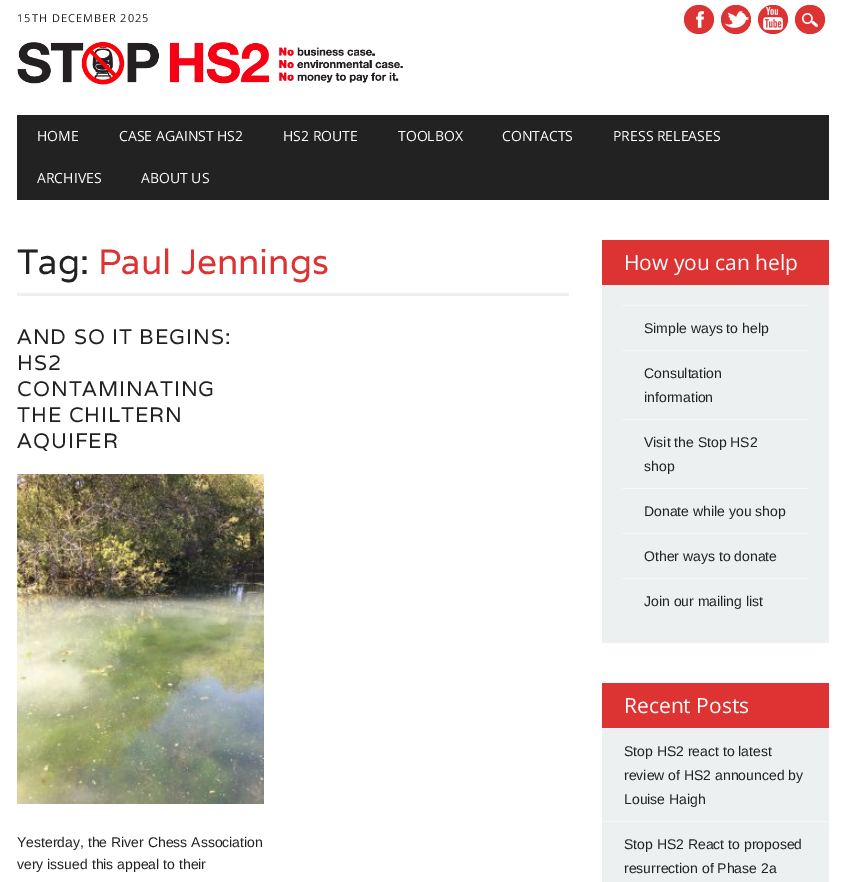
%!PS-Adobe-3.0
%%BoundingBox: 0 0 846 882
%%LanguageLevel: 3
%%Pages: 1
%%EndComments
%%BeginProlog
/setink { 3 { 255 div 3 1 roll } repeat setrgbcolor } def
/usefont { [ exch dup neg 0 0 3 -1 roll 0 0 ] selectfont } def
/drawtext { setink usefont moveto show } def
/fillbox { setink rectfill } def
/rrect { 5 dict begin { /r /h /w /y /x } { exch def } forall
  x r add y moveto x w add y 2 copy h add r arct x w add y h add x 1 index r arct
  x y h add x y r arct x y 2 copy exch w add exch r arct closepath end } def
/drawimage { 5 dict begin { /h /w /y /x /name } { exch def } forall
  gsave x y translate w h scale
  w h 8 [w 0 0 h 0 0] name (r) file false 3 colorimage grestore end } def
%%EndProlog
%%BeginSetup
<< /PageSize [846 882] >> setpagedevice
%%EndSetup
%%Page: 1 1
0 882 translate 1 -1 scale
4 setmiterlimit
0 0 846 882 255 255 255 fillbox
/OpenSans-Regular 11 usefont
34 34 34 setink
17 22 moveto 1 0 (15TH DECEMBER 2025) ashow
221 51 51 setink
684 5 30 29 14.5 rrect fill
(assets/img1.rgb) 696 11 8 17 drawimage
721 5 30 29 14.5 rrect fill
(assets/img2.rgb) 725 11 24 17 drawimage
758 5 30 29 14.5 rrect fill
(assets/img3.rgb) 763 7 20 23 drawimage
795 5 30 29 14.5 rrect fill
(assets/img4.rgb) 802 13 16 14 drawimage
(assets/img5.rgb) 17 41 386 44 drawimage
17 115 812 85 34 34 34 fillbox
(HOME) 37 141 /OpenSans-Regular 14 255 255 255 drawtext
(CASE AGAINST HS2) 119 141 /OpenSans-Regular 14 255 255 255 drawtext
(HS2 ROUTE) 283 141 /OpenSans-Regular 14 255 255 255 drawtext
(TOOLBOX) 398 141 /OpenSans-Regular 14 255 255 255 drawtext
(CONTACTS) 502 141 /OpenSans-Regular 14 255 255 255 drawtext
(PRESS RELEASES) 613 141 /OpenSans-Regular 14 255 255 255 drawtext
(ARCHIVES) 37 183 /OpenSans-Regular 14 255 255 255 drawtext
(ABOUT US) 141 183 /OpenSans-Regular 14 255 255 255 drawtext
17 293 552 3 236 240 241 fillbox
(Tag:) 17 274 /Varela-Regular 35 34 34 34 drawtext
(Paul Jennings) 98 274 /Varela-Regular 35 221 51 51 drawtext
/Varela-Regular 21 usefont
34 34 34 setink
17 344 moveto 1 0 (AND SO IT BEGINS:) ashow
17 370 moveto 1 0 (HS2) ashow
17 396 moveto 1 0 (CONTAMINATING) ashow
17 422 moveto 1 0 (THE CHILTERN) ashow
17 448 moveto 1 0 (AQUIFER) ashow
(assets/img6.rgb) 17 474 247 330 drawimage
(Yesterday, the River Chess Association) 17 847 /LiberationSans-Regular 14 34 34 34 drawtext
(very issued this appeal to their) 17 869 /LiberationSans-Regular 14 34 34 34 drawtext
602 285 227 358 236 240 241 fillbox
602 240 227 45 221 51 51 fillbox
(How you can help) 624 270 /OpenSans-Regular 21 255 255 255 drawtext
622 305 187 1 246 248 248 fillbox
(Simple ways to help) 644 333 /LiberationSans-Regular 14 34 34 34 drawtext
622 350 187 1 246 248 248 fillbox
(Consultation) 644 378 /LiberationSans-Regular 14 34 34 34 drawtext
(information) 644 402 /LiberationSans-Regular 14 34 34 34 drawtext
622 419 187 1 246 248 248 fillbox
(Visit the Stop HS2) 644 447 /LiberationSans-Regular 14 34 34 34 drawtext
(shop) 644 471 /LiberationSans-Regular 14 34 34 34 drawtext
622 488 187 1 246 248 248 fillbox
(Donate while you shop) 644 516 /LiberationSans-Regular 14 34 34 34 drawtext
622 533 187 1 246 248 248 fillbox
(Other ways to donate) 644 561 /LiberationSans-Regular 14 34 34 34 drawtext
622 578 187 1 246 248 248 fillbox
(Join our mailing list) 644 606 /LiberationSans-Regular 14 34 34 34 drawtext
602 729 227 153 236 240 241 fillbox
602 683 227 45 221 51 51 fillbox
(Recent Posts) 624 713 /OpenSans-Regular 21 255 255 255 drawtext
602 728 227 1 246 248 248 fillbox
(Stop HS2 react to latest) 624 756 /LiberationSans-Regular 14 34 34 34 drawtext
(review of HS2 announced by) 624 780 /LiberationSans-Regular 14 34 34 34 drawtext
(Louise Haigh) 624 804 /LiberationSans-Regular 14 34 34 34 drawtext
602 821 227 1 246 248 248 fillbox
(Stop HS2 React to proposed) 624 849 /LiberationSans-Regular 14 34 34 34 drawtext
(resurrection of Phase 2a) 624 873 /LiberationSans-Regular 14 34 34 34 drawtext
showpage
%%EOF
